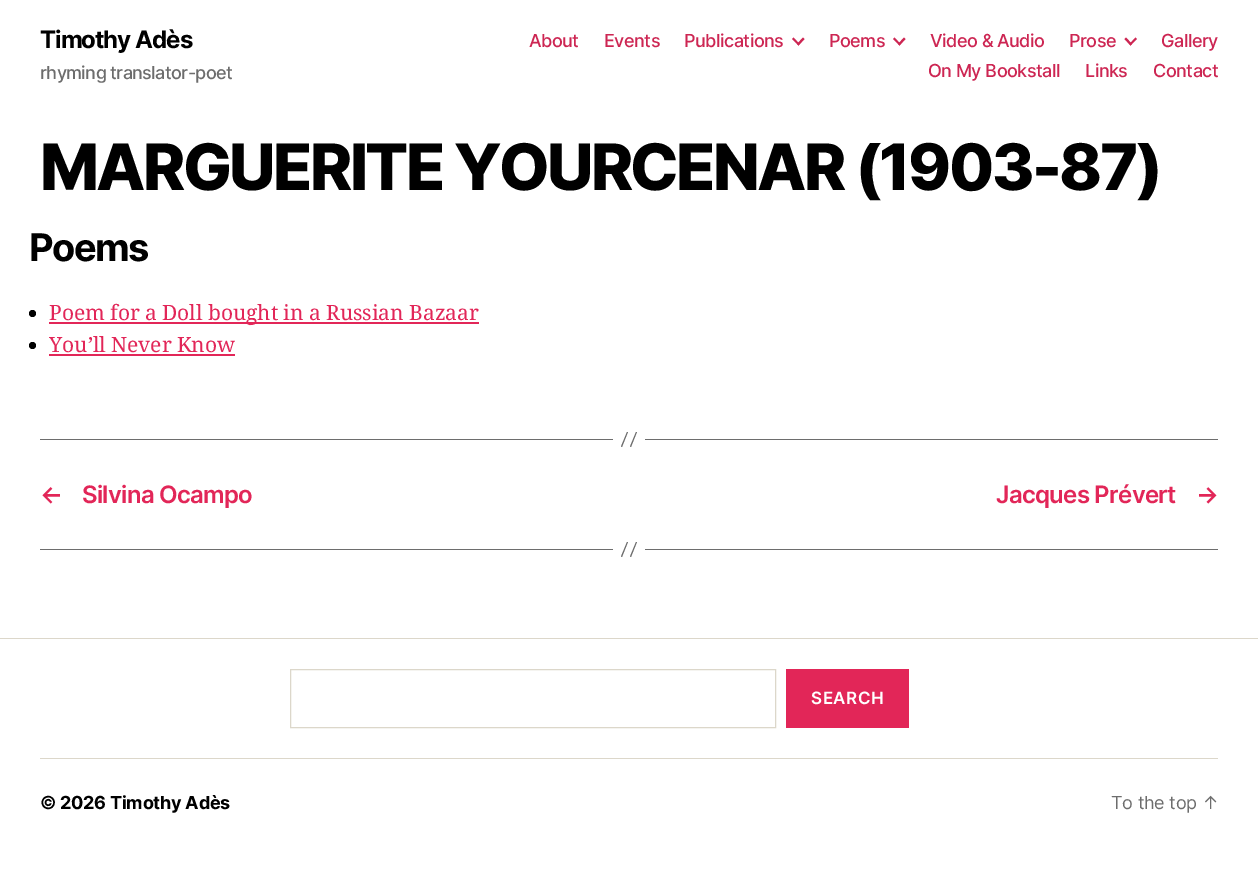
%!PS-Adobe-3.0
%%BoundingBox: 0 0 1258 886
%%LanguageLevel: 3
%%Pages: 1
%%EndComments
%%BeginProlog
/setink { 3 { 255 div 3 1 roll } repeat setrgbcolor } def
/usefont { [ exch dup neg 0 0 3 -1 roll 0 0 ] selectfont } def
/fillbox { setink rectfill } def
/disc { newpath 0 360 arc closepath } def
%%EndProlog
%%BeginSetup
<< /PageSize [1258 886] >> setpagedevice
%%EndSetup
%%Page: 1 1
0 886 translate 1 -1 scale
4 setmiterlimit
0 0 1258 886 255 255 255 fillbox
/Inter-Bold 24 usefont
0 0 0 setink
40 48 moveto -1 0 (Timothy Adès) ashow
/Inter-Medium 18 usefont
109 109 109 setink
40 79 moveto -0.6 0 (rhyming translator-poet) ashow
205 38 83 setink
529 47 moveto -0.5 0 (About) ashow
604 47 moveto -0.5 0 (Events) ashow
684 47 moveto -0.5 0 (Publications) ashow
792 39 moveto 793.5 37.5 lineto 799.5 44 lineto 798.5 45.5 lineto closepath fill
797 44 moveto 803 37.5 lineto 804.5 39 lineto 798.5 45.5 lineto closepath fill
829 47 moveto -0.5 0 (Poems) ashow
893 39 moveto 894.5 37.5 lineto 900.5 44 lineto 899.5 45.5 lineto closepath fill
898 44 moveto 904 37.5 lineto 905.5 39 lineto 899.5 45.5 lineto closepath fill
930 47 moveto -0.5 0 (Video & Audio) ashow
1069 47 moveto -0.5 0 (Prose) ashow
1124.5 39 moveto 1126 37.5 lineto 1132 44 lineto 1130.5 45.5 lineto closepath fill
1129.5 44 moveto 1135.5 37.5 lineto 1137 39 lineto 1130.5 45.5 lineto closepath fill
1161 47 moveto -0.5 0 (Gallery) ashow
928 77 moveto -0.5 0 (On My Bookstall) ashow
1085 77 moveto -0.5 0 (Links) ashow
1153 77 moveto -0.5 0 (Contact) ashow
/Inter-ExtraBold 64 usefont
0 0 0 setink
40 190 moveto -2.65 0 (MARGUERITE YOURCENAR \(1903-87\)) ashow
/Inter-Bold 38 usefont
29 261 moveto -1.5 0 (Poems) ashow
32.5 313.5 3.5 disc fill
49 322 430 2 226 38 88 fillbox
/NotoSerif-Regular 21 usefont
49 320 moveto -0.25 0 32 (Poem for a Doll bought in a Russian Bazaar) widthshow
0 0 0 setink
32.5 345.5 3.5 disc fill
226 38 88 setink
49 352 moveto -0.25 0 32 (You’ll Never Know) widthshow
49 354 186 2 226 38 88 fillbox
645 439 573 1 109 109 109 fillbox
40 439 573 1 109 109 109 fillbox
627 432 moveto 628 432 lineto 622 447 lineto 621 446.5 lineto closepath 636 432 moveto 637 432 lineto 631 447 lineto 630 446.5 lineto closepath fill
/Inter-SemiBold 24 usefont
226 38 88 setink
40 503 moveto -0.7 0 (←) ashow
82 503 moveto -0.7 0 (Silvina Ocampo) ashow
996 503 moveto -0.7 0 (Jacques Prévert) ashow
1196 503 moveto -0.7 0 (→) ashow
645 549 573 1 109 109 109 fillbox
40 549 573 1 109 109 109 fillbox
627 542 moveto 628 542 lineto 622 557 lineto 621 556.5 lineto closepath 636 542 moveto 637 542 lineto 631 557 lineto 630 556.5 lineto closepath fill
0 638 1258 1 220 215 202 fillbox
40 758 1178 1 220 215 202 fillbox
290.5 669.5 485 58 rectstroke
786 669 123 59 226 38 88 fillbox
/Inter-SemiBold 17 usefont
255 255 255 setink
811 704 moveto 0.5 0 (SEARCH) ashow
/Inter-Bold 18 usefont
0 0 0 setink
40 809 moveto -0.25 0 (© 2026 Timothy Adès) ashow
/Inter-Regular 18 usefont
109 109 109 setink
1111 809 moveto -0.25 0 (To the top ↑) ashow
showpage
%%EOF
